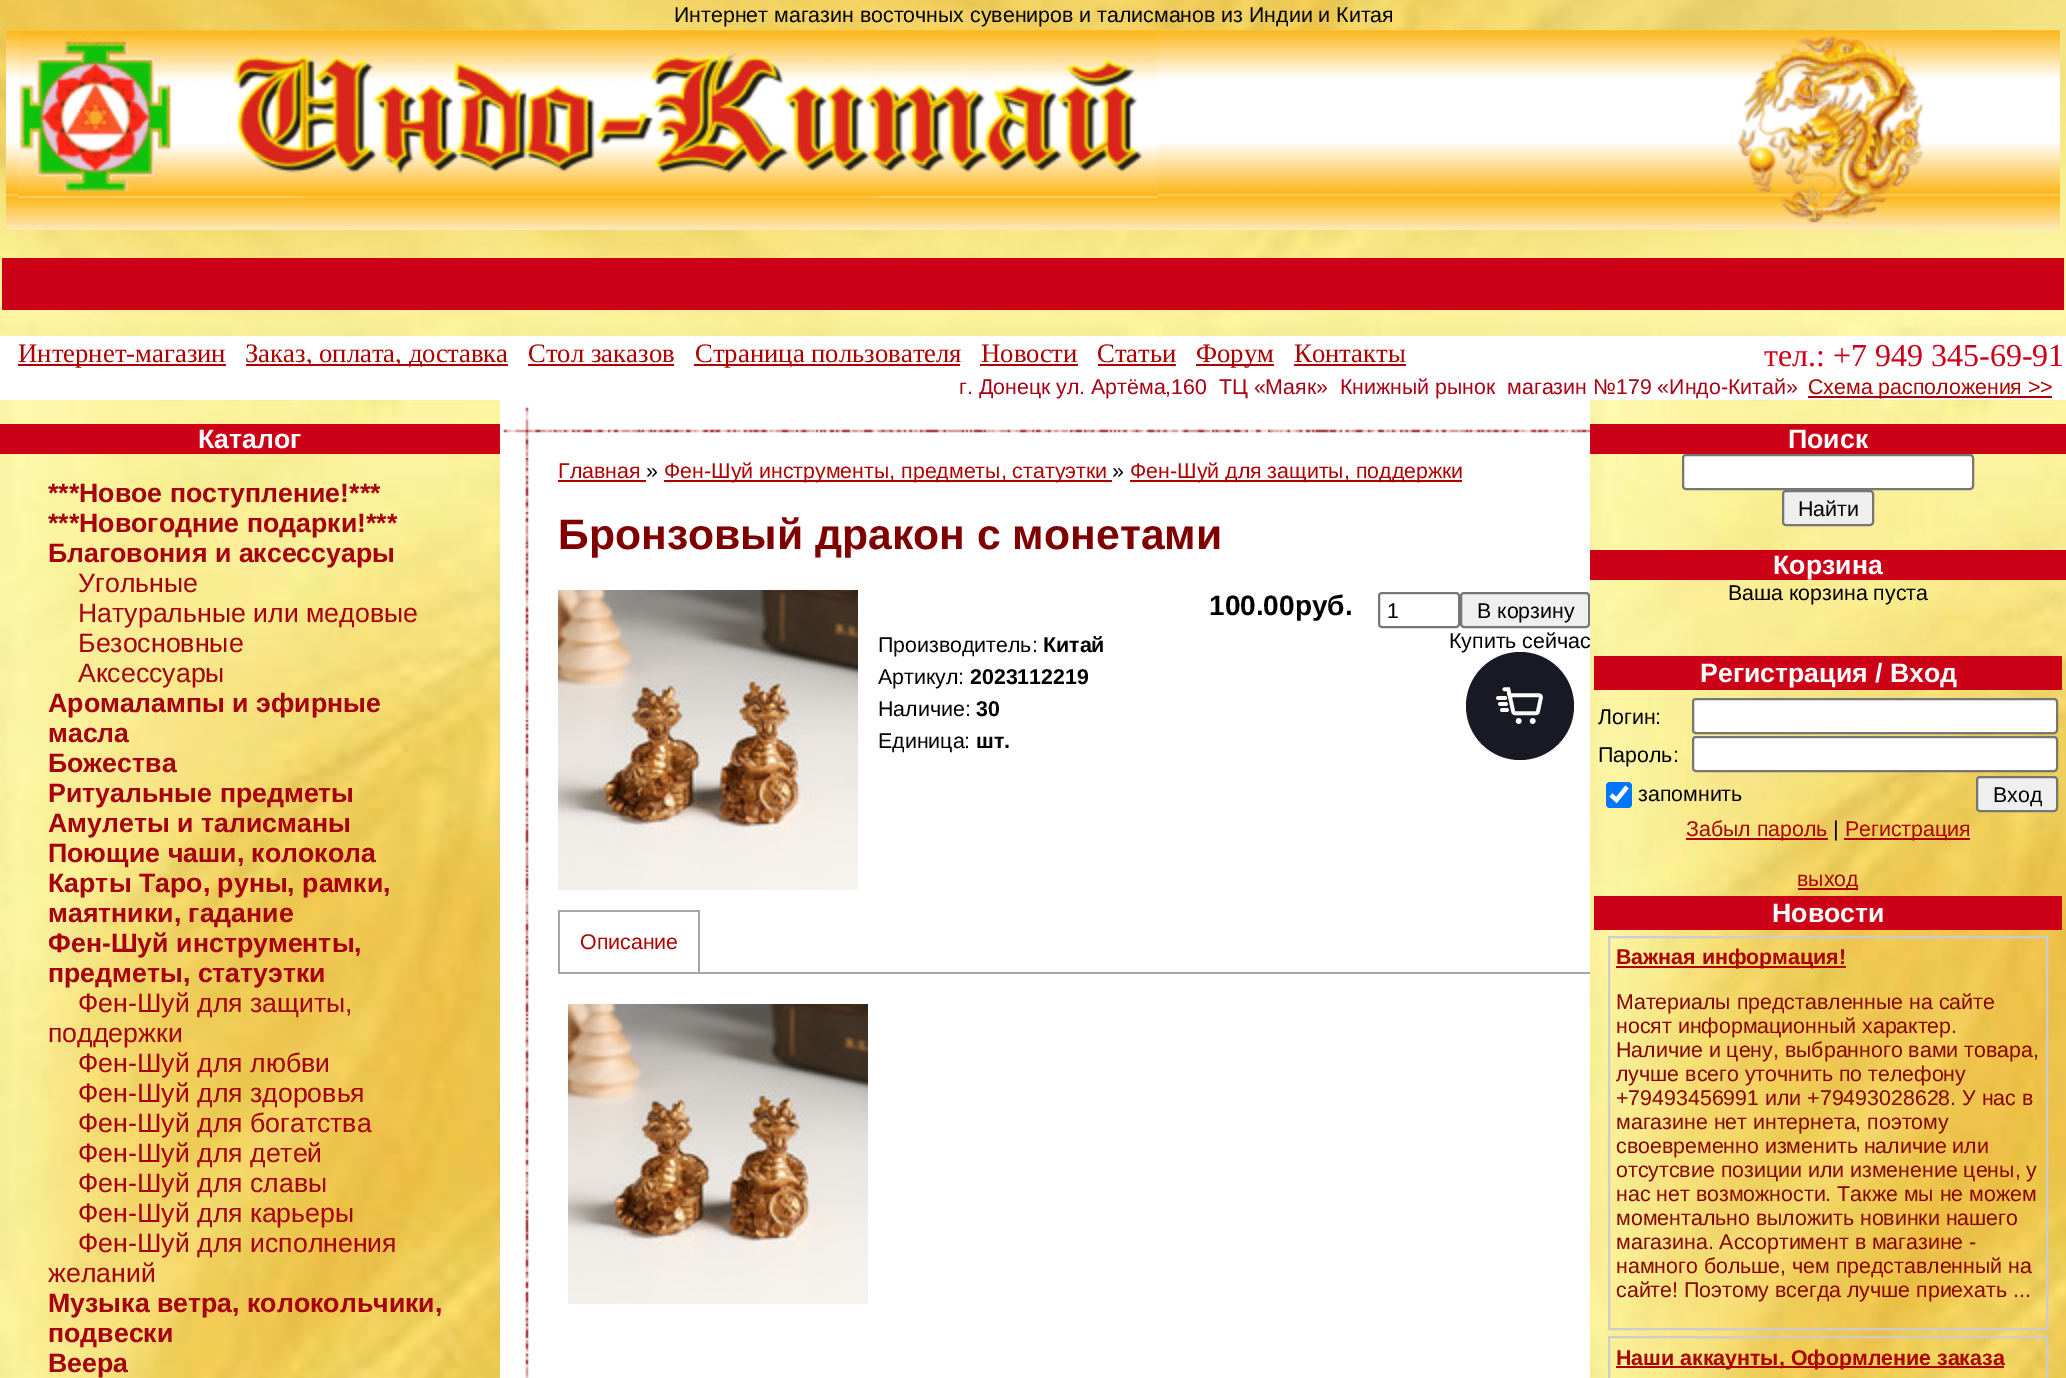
%!PS-Adobe-3.0
%%BoundingBox: 0 0 2066 1378
%%LanguageLevel: 3
%%Pages: 1
%%EndComments
%%BeginProlog
/setink { 3 { 255 div 3 1 roll } repeat setrgbcolor } def
/usefont { [ exch dup neg 0 0 3 -1 roll 0 0 ] selectfont } def
/drawtext { setink usefont moveto show } def
/fillbox { setink rectfill } def
/disc { newpath 0 360 arc closepath } def
/rrect { 5 dict begin { /r /h /w /y /x } { exch def } forall
  x r add y moveto x w add y 2 copy h add r arct x w add y h add x 1 index r arct
  x y h add x y r arct x y 2 copy exch w add exch r arct closepath end } def
/drawimage { 5 dict begin { /h /w /y /x /name } { exch def } forall
  gsave x y translate w h scale
  w h 8 [w 0 0 h 0 0] name (r) file false 3 colorimage grestore end } def
%%EndProlog
%%BeginSetup
<< /PageSize [2066 1378] >> setpagedevice
%%EndSetup
%%Page: 1 1
0 1378 translate 1 -1 scale
4 setmiterlimit
0 0 2066 1378 255 255 255 fillbox
(assets/img1.rgb) 0 0 2066 336 drawimage
(Интернет магазин восточных сувениров и талисманов из Индии и Китая) 674 22 /LiberationSans-Regular 21.35 0 0 0 drawtext
(assets/img2.rgb) 6 30 2054 200 drawimage
(assets/img3.rgb) 18 32 1140 166 drawimage
(assets/img4.rgb) 1737 35 187 188 drawimage
2 258 2062 52 204 0 23 fillbox
18 364 208 2 173 1 0 fillbox
(Интернет-магазин) 18 362 /LiberationSerif-Regular 26.7 173 1 0 drawtext
246 364 262 2 173 1 0 fillbox
(Заказ, оплата, доставка) 245 362 /LiberationSerif-Regular 26.7 173 1 0 drawtext
(Стол заказов) 528 362 /LiberationSerif-Regular 26.7 173 1 0 drawtext
528 364 146 2 173 1 0 fillbox
694 364 266 2 173 1 0 fillbox
(Страница пользователя) 695 362 /LiberationSerif-Regular 26.7 173 1 0 drawtext
(Новости) 981 362 /LiberationSerif-Regular 26.7 173 1 0 drawtext
980 364 98 2 173 1 0 fillbox
(Статьи) 1097 362 /LiberationSerif-Regular 26.7 173 1 0 drawtext
1098 364 78 2 173 1 0 fillbox
1196 364 78 2 173 1 0 fillbox
(Форум) 1196 362 /LiberationSerif-Regular 26.7 173 1 0 drawtext
(Контакты) 1294 362 /LiberationSerif-Regular 26.7 173 1 0 drawtext
1294 364 112 2 173 1 0 fillbox
(тел.: +7 949 345-69-91) 1764 366 /LiberationSerif-Regular 32 204 0 23 drawtext
(г. Донецк ул. Артёма,160  ТЦ «Маяк»  Книжный рынок  магазин №179 «Индо-Китай») 959 394 /LiberationSans-Regular 21.35 166 0 18 drawtext
1808 396 244 2 173 1 0 fillbox
(Схема расположения >>) 1808 394 /LiberationSans-Regular 21.35 173 1 0 drawtext
(assets/img5.rgb) 0 400 500 978 drawimage
0 424 500 30 204 0 23 fillbox
(Каталог) 198 448 /LiberationSans-Bold 26.7 255 255 255 drawtext
(***Новое поступление!***) 48 502 /LiberationSans-Bold 26.7 166 0 18 drawtext
(***Новогодние подарки!***) 48 532 /LiberationSans-Bold 26.7 166 0 18 drawtext
(Благовония и аксессуары) 48 562 /LiberationSans-Bold 26.7 166 0 18 drawtext
(Угольные) 78 592 /LiberationSans-Regular 26.7 166 0 18 drawtext
(Натуральные или медовые) 78 622 /LiberationSans-Regular 26.7 166 0 18 drawtext
(Безосновные) 78 652 /LiberationSans-Regular 26.7 166 0 18 drawtext
(Аксессуары) 78 682 /LiberationSans-Regular 26.7 166 0 18 drawtext
(Аромалампы и эфирные) 48 712 /LiberationSans-Bold 26.7 166 0 18 drawtext
(масла) 48 742 /LiberationSans-Bold 26.7 166 0 18 drawtext
(Божества) 48 772 /LiberationSans-Bold 26.7 166 0 18 drawtext
(Ритуальные предметы) 48 802 /LiberationSans-Bold 26.7 166 0 18 drawtext
(Амулеты и талисманы) 48 832 /LiberationSans-Bold 26.7 166 0 18 drawtext
(Поющие чаши, колокола) 48 862 /LiberationSans-Bold 26.7 166 0 18 drawtext
(Карты Таро, руны, рамки,) 48 892 /LiberationSans-Bold 26.7 166 0 18 drawtext
(маятники, гадание) 48 922 /LiberationSans-Bold 26.7 166 0 18 drawtext
(Фен-Шуй инструменты,) 48 952 /LiberationSans-Bold 26.7 166 0 18 drawtext
(предметы, статуэтки) 48 982 /LiberationSans-Bold 26.7 166 0 18 drawtext
(Фен-Шуй для защиты,) 78 1012 /LiberationSans-Regular 26.7 166 0 18 drawtext
(поддержки) 48 1042 /LiberationSans-Regular 26.7 166 0 18 drawtext
(Фен-Шуй для любви) 78 1072 /LiberationSans-Regular 26.7 166 0 18 drawtext
(Фен-Шуй для здоровья) 78 1102 /LiberationSans-Regular 26.7 166 0 18 drawtext
(Фен-Шуй для богатства) 78 1132 /LiberationSans-Regular 26.7 166 0 18 drawtext
(Фен-Шуй для детей) 78 1162 /LiberationSans-Regular 26.7 166 0 18 drawtext
(Фен-Шуй для славы) 78 1192 /LiberationSans-Regular 26.7 166 0 18 drawtext
(Фен-Шуй для карьеры) 78 1222 /LiberationSans-Regular 26.7 166 0 18 drawtext
(Фен-Шуй для исполнения) 78 1252 /LiberationSans-Regular 26.7 166 0 18 drawtext
(желаний) 48 1282 /LiberationSans-Regular 26.7 166 0 18 drawtext
(Музыка ветра, колокольчики,) 48 1312 /LiberationSans-Bold 26.7 166 0 18 drawtext
(подвески) 48 1342 /LiberationSans-Bold 26.7 166 0 18 drawtext
(Веера) 48 1372 /LiberationSans-Bold 26.7 166 0 18 drawtext
(assets/img6.rgb) 503 407 55 51 drawimage
(assets/img7.rgb) 558 429 1032 4 drawimage
(assets/img8.rgb) 525 458 4 920 drawimage
(Главная) 558 478 /LiberationSans-Regular 21.35 173 1 0 drawtext
(») 646 478 /LiberationSans-Regular 21.35 0 0 0 drawtext
558 480 88 2 173 1 0 fillbox
664 480 448 2 173 1 0 fillbox
(Фен-Шуй инструменты, предметы, статуэтки) 664 478 /LiberationSans-Regular 21.35 173 1 0 drawtext
(») 1112 478 /LiberationSans-Regular 21.35 0 0 0 drawtext
1130 480 332 2 173 1 0 fillbox
(Фен-Шуй для защиты, поддержки) 1130 478 /LiberationSans-Regular 21.35 173 1 0 drawtext
(Бронзовый дракон с монетами) 558 549 /LiberationSans-Bold 42.7 128 0 0 drawtext
(assets/img9.rgb) 558 590 300 300 drawimage
(100.00руб.) 1209 615 /LiberationSans-Bold 28 0 0 0 drawtext
118 118 118 setink
2 setlinewidth
1379 593 80 34 3 rrect stroke
(1) 1387 618 /LiberationSans-Regular 21.35 0 0 0 drawtext
239 239 239 setink
1461 593 128 34 3 rrect gsave fill grestore
118 118 118 setink
stroke
(В корзину) 1477 618 /LiberationSans-Regular 21.35 0 0 0 drawtext
(Производитель:) 878 652 /LiberationSans-Regular 21.35 0 0 0 drawtext
(Китай) 1043 652 /LiberationSans-Bold 21.35 0 0 0 drawtext
(Артикул:) 878 684 /LiberationSans-Regular 21.35 0 0 0 drawtext
(2023112219) 970 684 /LiberationSans-Bold 21.35 0 0 0 drawtext
(Наличие:) 878 716 /LiberationSans-Regular 21.35 0 0 0 drawtext
(30) 976 716 /LiberationSans-Bold 21.35 0 0 0 drawtext
(Единица:) 878 748 /LiberationSans-Regular 21.35 0 0 0 drawtext
(шт.) 976 748 /LiberationSans-Bold 21.35 0 0 0 drawtext
25 25 37 setink
1520 706 54 disc fill
(Купить сейчас) 1449 648 /LiberationSans-Regular 21.35 0 0 0 drawtext
(assets/img10.rgb) 1496 687 47 37 drawimage
558 972 1032 2 167 166 166 fillbox
558 910 2 64 167 166 166 fillbox
560 910 140 2 167 166 166 fillbox
698 910 2 62 167 166 166 fillbox
(Описание) 580 949 /LiberationSans-Regular 21.35 173 1 0 drawtext
(assets/img9.rgb) 568 1004 300 300 drawimage
(assets/img11.rgb) 1590 400 476 978 drawimage
1590 424 476 30 204 0 23 fillbox
(Поиск) 1788 448 /LiberationSans-Bold 26.7 255 255 255 drawtext
1683 455 290 34 3 rrect gsave fill grestore
118 118 118 setink
stroke
239 239 239 setink
1783 491 90 34 3 rrect gsave fill grestore
118 118 118 setink
stroke
(Найти) 1798 516 /LiberationSans-Regular 21.35 0 0 0 drawtext
1590 550 476 30 204 0 23 fillbox
(Корзина) 1773 574 /LiberationSans-Bold 26.7 255 255 255 drawtext
(Ваша корзина пуста) 1728 600 /LiberationSans-Regular 21.35 0 0 0 drawtext
1594 656 468 34 204 0 23 fillbox
(Регистрация / Вход) 1700 682 /LiberationSans-Bold 26.7 255 255 255 drawtext
(Логин:) 1598 724 /LiberationSans-Regular 21.35 0 0 0 drawtext
255 255 255 setink
1693 699 364 34 3 rrect gsave fill grestore
118 118 118 setink
stroke
(Пароль:) 1598 762 /LiberationSans-Regular 21.35 0 0 0 drawtext
255 255 255 setink
1693 737 364 34 3 rrect gsave fill grestore
118 118 118 setink
stroke
0 117 255 setink
1606 782 26 26 4 rrect fill
255 255 255 setink
4.2 setlinewidth
1611 795 moveto 1616.5 800 lineto 1627 787 lineto stroke
(запомнить) 1638 801 /LiberationSans-Regular 21.35 0 0 0 drawtext
239 239 239 setink
1977 777 80 34 3 rrect gsave fill grestore
118 118 118 setink
2 setlinewidth
stroke
(Вход) 1993 802 /LiberationSans-Regular 21.35 0 0 0 drawtext
1686 838 142 2 173 1 0 fillbox
(Забыл пароль) 1686 836 /LiberationSans-Regular 21.35 173 1 0 drawtext
(|) 1833 836 /LiberationSans-Regular 21.35 0 0 0 drawtext
1844 838 126 2 173 1 0 fillbox
(Регистрация) 1845 836 /LiberationSans-Regular 21.35 173 1 0 drawtext
1798 888 60 2 173 1 0 fillbox
(выход) 1797 886 /LiberationSans-Regular 21.35 173 1 0 drawtext
1594 896 468 34 204 0 23 fillbox
(Новости) 1772 922 /LiberationSans-Bold 26.7 255 255 255 drawtext
204 204 204 setink
1609 937 438 392 rectstroke
1616 966 230 2 173 1 0 fillbox
(Важная информация!) 1616 964 /LiberationSans-Bold 21.35 173 1 0 drawtext
(Материалы представленные на сайте) 1616 1009 /LiberationSans-Regular 21.35 136 0 0 drawtext
(носят информационный характер.) 1616 1033 /LiberationSans-Regular 21.35 136 0 0 drawtext
(Наличие и цену, выбранного вами товара,) 1616 1057 /LiberationSans-Regular 21.35 136 0 0 drawtext
(лучше всего уточнить по телефону) 1616 1081 /LiberationSans-Regular 21.35 136 0 0 drawtext
(+79493456991 или +79493028628. У нас в) 1616 1105 /LiberationSans-Regular 21.35 136 0 0 drawtext
(магазине нет интернета, поэтому) 1616 1129 /LiberationSans-Regular 21.35 136 0 0 drawtext
(своевременно изменить наличие или) 1616 1153 /LiberationSans-Regular 21.35 136 0 0 drawtext
(отсутсвие позиции или изменение цены, у) 1616 1177 /LiberationSans-Regular 21.35 136 0 0 drawtext
(нас нет возможности. Также мы не можем) 1616 1201 /LiberationSans-Regular 21.35 136 0 0 drawtext
(моментально выложить новинки нашего) 1616 1225 /LiberationSans-Regular 21.35 136 0 0 drawtext
(магазина. Ассортимент в магазине -) 1616 1249 /LiberationSans-Regular 21.35 136 0 0 drawtext
(намного больше, чем представленный на) 1616 1273 /LiberationSans-Regular 21.35 136 0 0 drawtext
(сайте! Поэтому всегда лучше приехать ...) 1616 1297 /LiberationSans-Regular 21.35 136 0 0 drawtext
204 204 204 setink
1609 1337 438 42 rectstroke
1616 1366 388 2 173 1 0 fillbox
(Наши аккаунты, Оформление заказа) 1616 1365 /LiberationSans-Bold 21.35 173 1 0 drawtext
showpage
%%EOF
